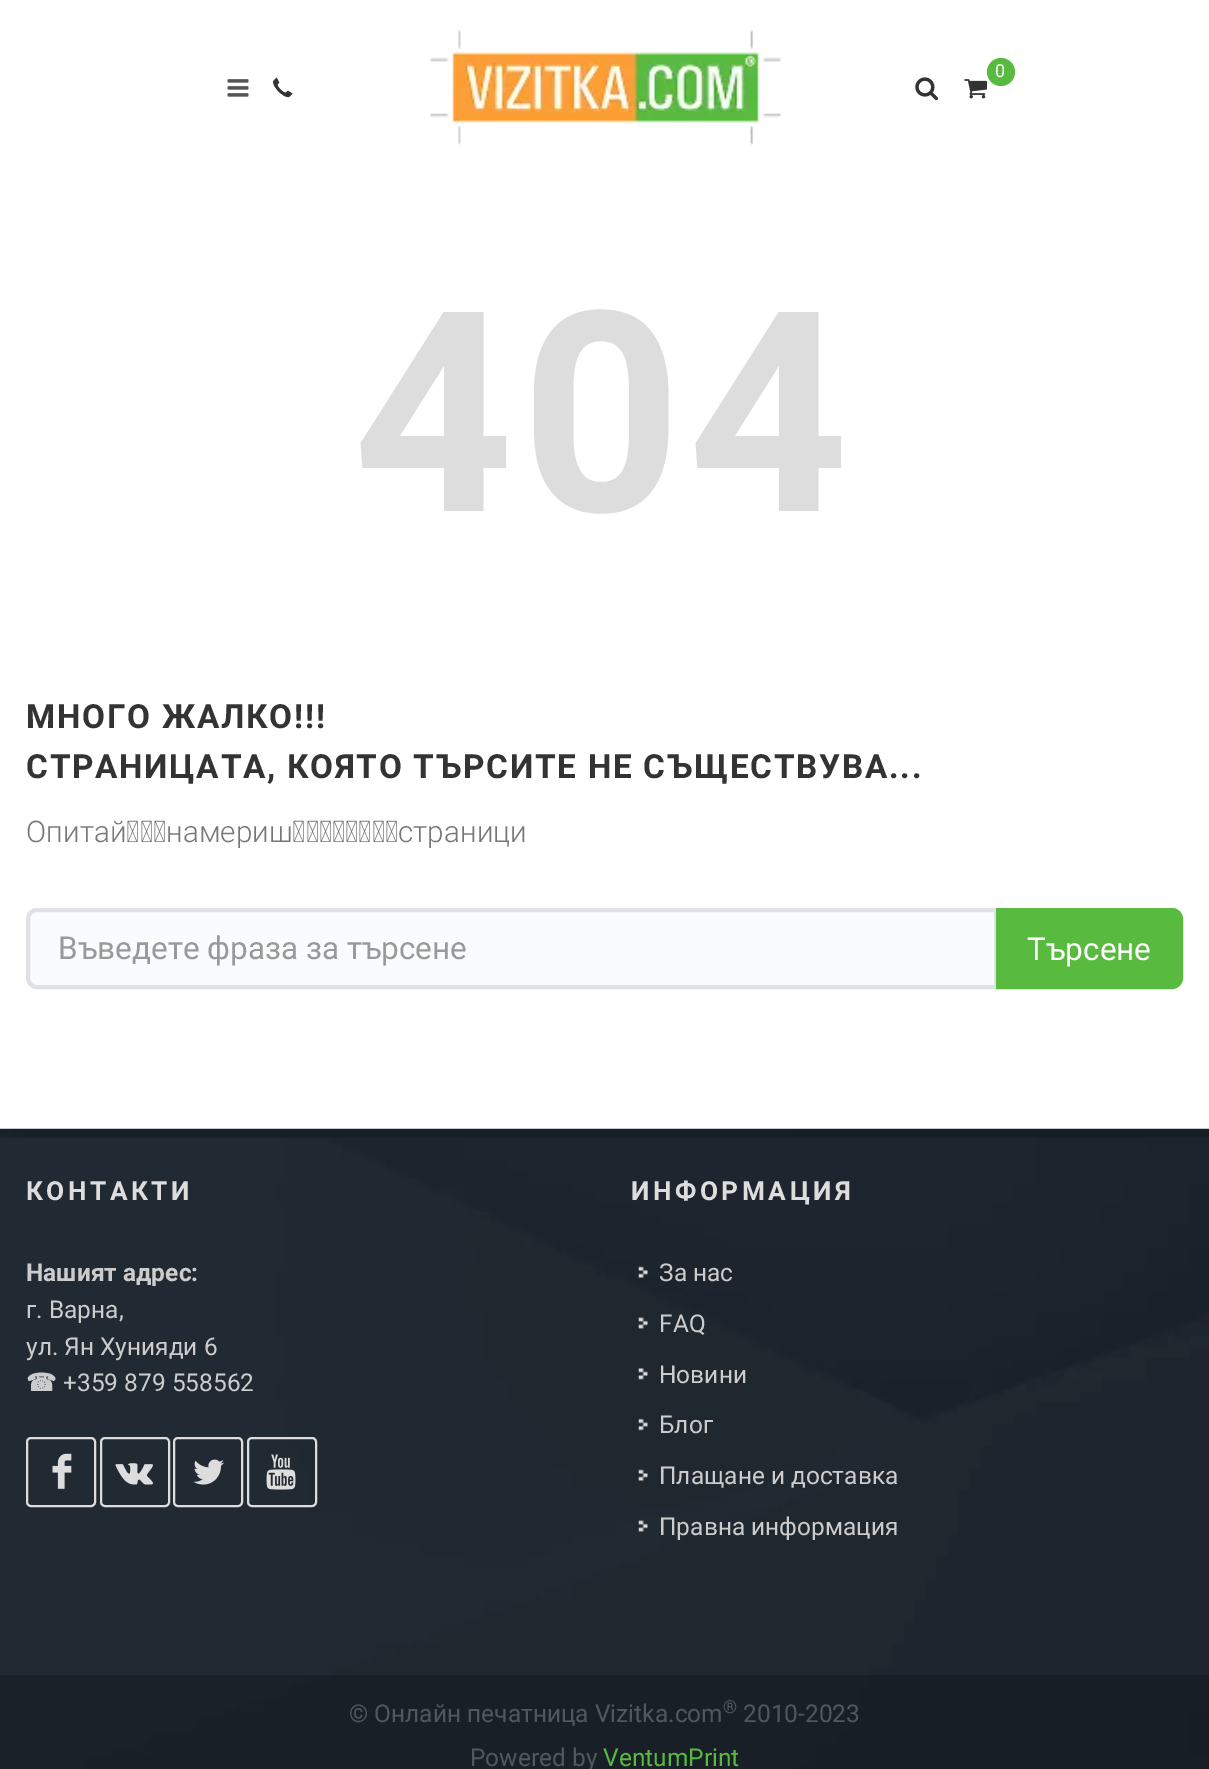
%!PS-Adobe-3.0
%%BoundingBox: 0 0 1209 1769
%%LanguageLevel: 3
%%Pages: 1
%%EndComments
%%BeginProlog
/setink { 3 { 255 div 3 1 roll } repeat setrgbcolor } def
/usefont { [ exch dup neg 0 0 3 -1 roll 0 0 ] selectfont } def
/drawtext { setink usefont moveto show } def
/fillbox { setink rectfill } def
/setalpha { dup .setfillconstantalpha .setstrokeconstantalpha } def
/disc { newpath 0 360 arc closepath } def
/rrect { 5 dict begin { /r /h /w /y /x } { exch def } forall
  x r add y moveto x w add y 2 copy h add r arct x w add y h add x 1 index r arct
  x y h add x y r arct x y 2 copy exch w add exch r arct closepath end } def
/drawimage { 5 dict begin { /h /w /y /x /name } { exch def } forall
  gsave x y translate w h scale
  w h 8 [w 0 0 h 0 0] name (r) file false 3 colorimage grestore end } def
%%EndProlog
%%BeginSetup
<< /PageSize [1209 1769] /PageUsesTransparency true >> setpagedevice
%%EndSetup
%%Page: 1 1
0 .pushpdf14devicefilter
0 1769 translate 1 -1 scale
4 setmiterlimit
0 0 1209 1769 255 255 255 fillbox
(assets/img1.rgb) 430 29 351 117 drawimage
89 186 64 setink
1001 72 14 disc fill
(0) 995 77 /Roboto-Regular 18 255 255 255 drawtext
(assets/img2.rgb) 964 79 23 20 drawimage
(assets/img3.rgb) 273 77 20 21 drawimage
(assets/img4.rgb) 915 77 23 24 drawimage
(assets/img5.rgb) 227 79 22 18 drawimage
/Roboto-Bold 280 usefont
221 221 221 setink
353 511 moveto 7 0 (404) ashow
/Roboto-Bold 33.25 usefont
51 51 51 setink
26 728 moveto 1.75 0 (МНОГО ЖАЛКО!!!) ashow
26 778 moveto 1.75 0 (СТРАНИЦАТА, КОЯТО ТЪРСИТЕ НЕ СЪЩЕСТВУВА...) ashow
(Опитай да намериш подобни страници) 26 842 /Roboto-Light 29.75 119 119 119 drawtext
250 251 252 setink
37 910 moveto 996 910 lineto 996 987 lineto 37 987 lineto 32 987 28 983 28 978 curveto 28 919 lineto 28 914 32 910 37 910 curveto closepath gsave fill grestore
223 225 230 setink
4 setlinewidth
stroke
(Въведете фраза за търсене) 58 959 /Roboto-Regular 31.5 153 153 153 drawtext
89 186 64 setink
998 910 moveto 1172 910 lineto 1177 910 1181 914 1181 919 curveto 1181 978 lineto 1181 983 1177 987 1172 987 curveto 998 987 lineto closepath gsave fill grestore
stroke
(Търсене) 1027 960 /Roboto-Regular 31.5 255 255 255 drawtext
(assets/img6.rgb) 0 1128 1209 641 drawimage
0.2 setalpha
0 1129 1209 9 0 0 0 fillbox
/Roboto-Bold 26.25 usefont
1 setalpha
221 221 221 setink
26 1200 moveto 3.5 0 (КОНТАКТИ) ashow
(Нашият адрес:) 26 1281 /Roboto-Bold 24.5 204 204 204 drawtext
(г. Варна,) 26 1318 /Roboto-Regular 24.5 204 204 204 drawtext
(ул. Ян Хунияди 6) 26 1355 /Roboto-Regular 24.5 204 204 204 drawtext
(☎) 26 1391 /DejaVuSans-Bold 24.5 204 204 204 drawtext
(+359 879 558562) 63 1391 /Roboto-Regular 24.5 204 204 204 drawtext
221 221 221 setink
2 setlinewidth
27 1438 68 68 4 rrect stroke
(assets/img7.rgb) 52 1453 20 36 drawimage
101 1438 68 68 4 rrect stroke
(assets/img8.rgb) 115 1463 38 22 drawimage
174 1438 68 68 4 rrect stroke
(assets/img9.rgb) 193 1459 31 26 drawimage
248 1438 68 68 4 rrect stroke
(assets/img10.rgb) 266 1454 30 36 drawimage
/Roboto-Bold 26.25 usefont
631 1200 moveto 3.5 0 (ИНФОРМАЦИЯ) ashow
(assets/img11.rgb) 638 1266 10 12 drawimage
(За нас) 659 1281 /Roboto-Regular 24.5 204 204 204 drawtext
(assets/img12.rgb) 638 1317 10 12 drawimage
(FAQ) 659 1332 /Roboto-Regular 24.5 204 204 204 drawtext
(assets/img13.rgb) 638 1368 10 12 drawimage
(Новини) 659 1383 /Roboto-Regular 24.5 204 204 204 drawtext
(assets/img14.rgb) 638 1418 10 13 drawimage
(Блог) 659 1433 /Roboto-Regular 24.5 204 204 204 drawtext
(assets/img15.rgb) 638 1469 10 12 drawimage
(Плащане и доставка) 659 1484 /Roboto-Regular 24.5 204 204 204 drawtext
(assets/img16.rgb) 638 1520 10 12 drawimage
(Правна информация) 659 1535 /Roboto-Regular 24.5 204 204 204 drawtext
0.2 setalpha
0 1675 1209 94 0 0 0 fillbox
1 setalpha
(© Онлайн печатница Vizitka.com) 349 1722 /Roboto-Regular 24.5 82 87 92 drawtext
(®) 723 1713 /Roboto-Regular 18 82 87 92 drawtext
(2010-2023) 743 1722 /Roboto-Regular 24.5 82 87 92 drawtext
(Powered by) 470 1766 /Roboto-Regular 24.5 82 87 92 drawtext
(VentumPrint) 603 1766 /Roboto-Regular 24.5 89 186 64 drawtext
.poppdf14devicefilter showpage
%%EOF
